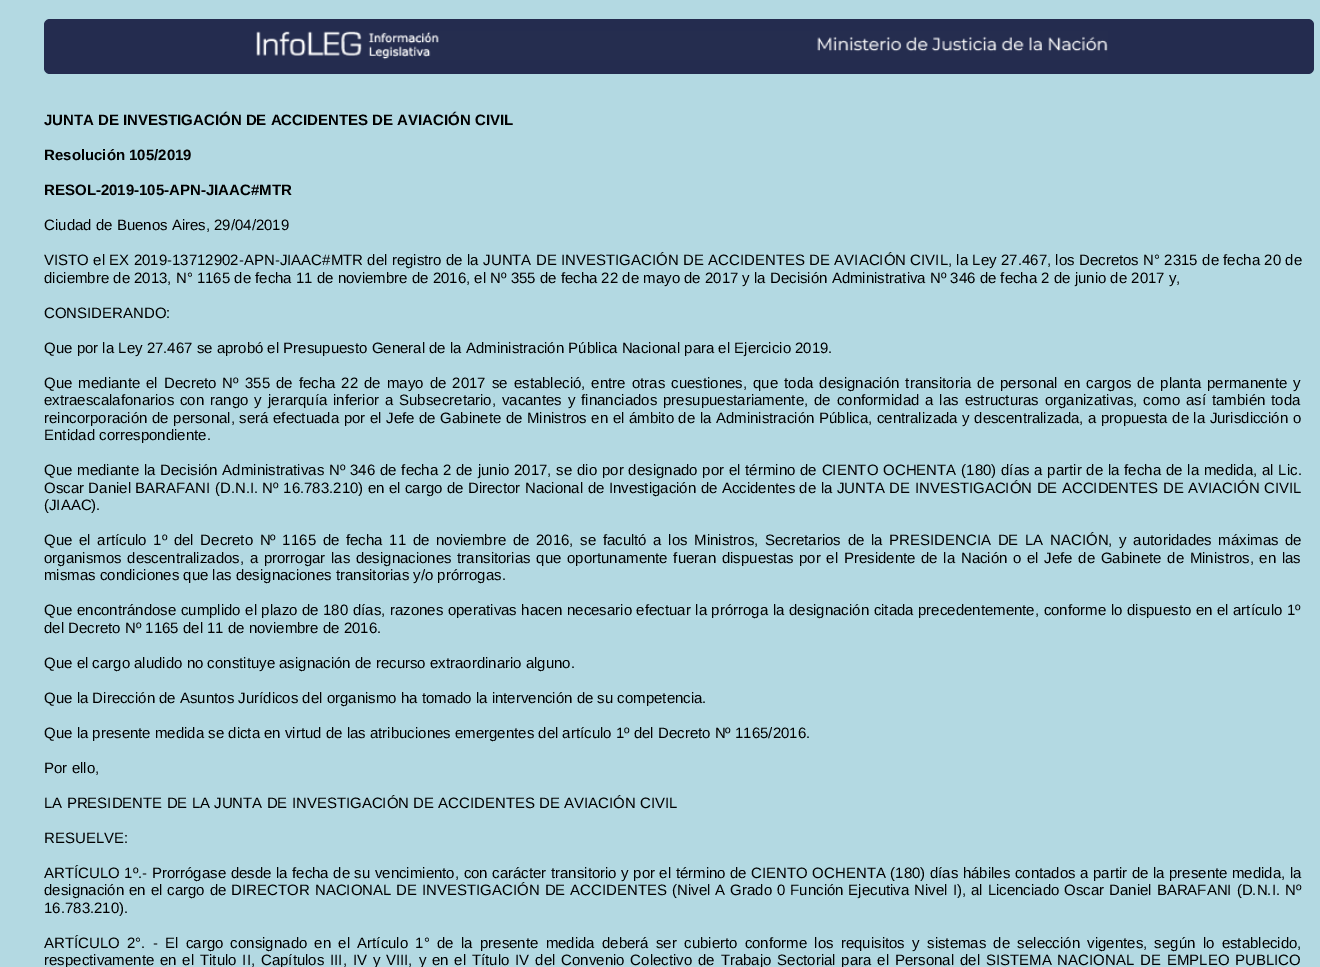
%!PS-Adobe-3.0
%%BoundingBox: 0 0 1320 967
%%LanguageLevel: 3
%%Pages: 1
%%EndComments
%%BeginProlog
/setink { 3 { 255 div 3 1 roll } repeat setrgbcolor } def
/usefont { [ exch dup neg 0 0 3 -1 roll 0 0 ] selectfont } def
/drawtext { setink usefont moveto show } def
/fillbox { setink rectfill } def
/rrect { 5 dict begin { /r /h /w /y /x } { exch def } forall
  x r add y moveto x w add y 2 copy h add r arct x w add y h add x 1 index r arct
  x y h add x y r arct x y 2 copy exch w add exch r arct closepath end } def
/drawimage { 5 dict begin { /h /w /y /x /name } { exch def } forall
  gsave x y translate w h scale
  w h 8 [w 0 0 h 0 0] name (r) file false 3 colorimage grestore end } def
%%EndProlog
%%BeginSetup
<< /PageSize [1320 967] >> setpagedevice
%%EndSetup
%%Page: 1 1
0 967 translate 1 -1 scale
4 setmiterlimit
0 0 1320 967 179 217 226 fillbox
36 44 79 setink
44 19 1270 55 6 rrect fill
(assets/img1.rgb) 256 31 852 29 drawimage
(JUNTA DE INVESTIGACIÓN DE ACCIDENTES DE AVIACIÓN CIVIL) 44 125 /LiberationSans-Bold 15 0 0 0 drawtext
(Resolución 105/2019) 44 160 /LiberationSans-Bold 15 0 0 0 drawtext
(RESOL-2019-105-APN-JIAAC#MTR) 44 195 /LiberationSans-Bold 15 0 0 0 drawtext
(Ciudad de Buenos Aires, 29/04/2019) 44 230 /LiberationSans-Regular 15 0 0 0 drawtext
44 265 moveto 0.2 0 32 (VISTO el EX 2019-13712902-APN-JIAAC#MTR del registro de la JUNTA DE INVESTIGACIÓN DE ACCIDENTES DE AVIACIÓN CIVIL, la Ley 27.467, los Decretos N° 2315 de fecha 20 de) widthshow
(diciembre de 2013, N° 1165 de fecha 11 de noviembre de 2016, el Nº 355 de fecha 22 de mayo de 2017 y la Decisión Administrativa Nº 346 de fecha 2 de junio de 2017 y,) 44 283 /LiberationSans-Regular 15 0 0 0 drawtext
(CONSIDERANDO:) 44 318 /LiberationSans-Regular 15 0 0 0 drawtext
(Que por la Ley 27.467 se aprobó el Presupuesto General de la Administración Pública Nacional para el Ejercicio 2019.) 44 353 /LiberationSans-Regular 15 0 0 0 drawtext
44 388 moveto 1.9 0 32 (Que mediante el Decreto Nº 355 de fecha 22 de mayo de 2017 se estableció, entre otras cuestiones, que toda designación transitoria de personal en cargos de planta permanente y) widthshow
44 405 moveto 1.8 0 32 (extraescalafonarios con rango y jerarquía inferior a Subsecretario, vacantes y financiados presupuestariamente, de conformidad a las estructuras organizativas, como así también toda) widthshow
44 423 moveto 0.4 0 32 (reincorporación de personal, será efectuada por el Jefe de Gabinete de Ministros en el ámbito de la Administración Pública, centralizada y descentralizada, a propuesta de la Jurisdicción o) widthshow
(Entidad correspondiente.) 44 440 /LiberationSans-Regular 15 0 0 0 drawtext
44 475 moveto 0.65 0 32 (Que mediante la Decisión Administrativas Nº 346 de fecha 2 de junio 2017, se dio por designado por el término de CIENTO OCHENTA \(180\) días a partir de la fecha de la medida, al Lic.) widthshow
44 493 moveto 0.25 0 32 (Oscar Daniel BARAFANI \(D.N.I. Nº 16.783.210\) en el cargo de Director Nacional de Investigación de Accidentes de la JUNTA DE INVESTIGACIÓN DE ACCIDENTES DE AVIACIÓN CIVIL) widthshow
(\(JIAAC\).) 44 510 /LiberationSans-Regular 15 0 0 0 drawtext
44 545 moveto 2.5 0 32 (Que el artículo 1º del Decreto Nº 1165 de fecha 11 de noviembre de 2016, se facultó a los Ministros, Secretarios de la PRESIDENCIA DE LA NACIÓN, y autoridades máximas de) widthshow
44 563 moveto 1.5 0 32 (organismos descentralizados, a prorrogar las designaciones transitorias que oportunamente fueran dispuestas por el Presidente de la Nación o el Jefe de Gabinete de Ministros, en las) widthshow
(mismas condiciones que las designaciones transitorias y/o prórrogas.) 44 580 /LiberationSans-Regular 15 0 0 0 drawtext
44 615 moveto 0.4 0 32 (Que encontrándose cumplido el plazo de 180 días, razones operativas hacen necesario efectuar la prórroga la designación citada precedentemente, conforme lo dispuesto en el artículo 1º) widthshow
(del Decreto Nº 1165 del 11 de noviembre de 2016.) 44 633 /LiberationSans-Regular 15 0 0 0 drawtext
(Que el cargo aludido no constituye asignación de recurso extraordinario alguno.) 44 668 /LiberationSans-Regular 15 0 0 0 drawtext
(Que la Dirección de Asuntos Jurídicos del organismo ha tomado la intervención de su competencia.) 44 703 /LiberationSans-Regular 15 0 0 0 drawtext
(Que la presente medida se dicta en virtud de las atribuciones emergentes del artículo 1º del Decreto Nº 1165/2016.) 44 738 /LiberationSans-Regular 15 0 0 0 drawtext
(Por ello,) 44 773 /LiberationSans-Regular 15 0 0 0 drawtext
(LA PRESIDENTE DE LA JUNTA DE INVESTIGACIÓN DE ACCIDENTES DE AVIACIÓN CIVIL) 44 808 /LiberationSans-Regular 15 0 0 0 drawtext
(RESUELVE:) 44 843 /LiberationSans-Regular 15 0 0 0 drawtext
44 878 moveto 0.35 0 32 (ARTÍCULO 1º.- Prorrógase desde la fecha de su vencimiento, con carácter transitorio y por el término de CIENTO OCHENTA \(180\) días hábiles contados a partir de la presente medida, la) widthshow
44 895 moveto 0.8 0 32 (designación en el cargo de DIRECTOR NACIONAL DE INVESTIGACIÓN DE ACCIDENTES \(Nivel A Grado 0 Función Ejecutiva Nivel I\), al Licenciado Oscar Daniel BARAFANI \(D.N.I. Nº) widthshow
(16.783.210\).) 44 913 /LiberationSans-Regular 15 0 0 0 drawtext
44 948 moveto 3.1 0 32 (ARTÍCULO 2°. - El cargo consignado en el Artículo 1° de la presente medida deberá ser cubierto conforme los requisitos y sistemas de selección vigentes, según lo establecido,) widthshow
44 965 moveto 1.7 0 32 (respectivamente en el Titulo II, Capítulos III, IV y VIII, y en el Título IV del Convenio Colectivo de Trabajo Sectorial para el Personal del SISTEMA NACIONAL DE EMPLEO PUBLICO) widthshow
showpage
%%EOF
